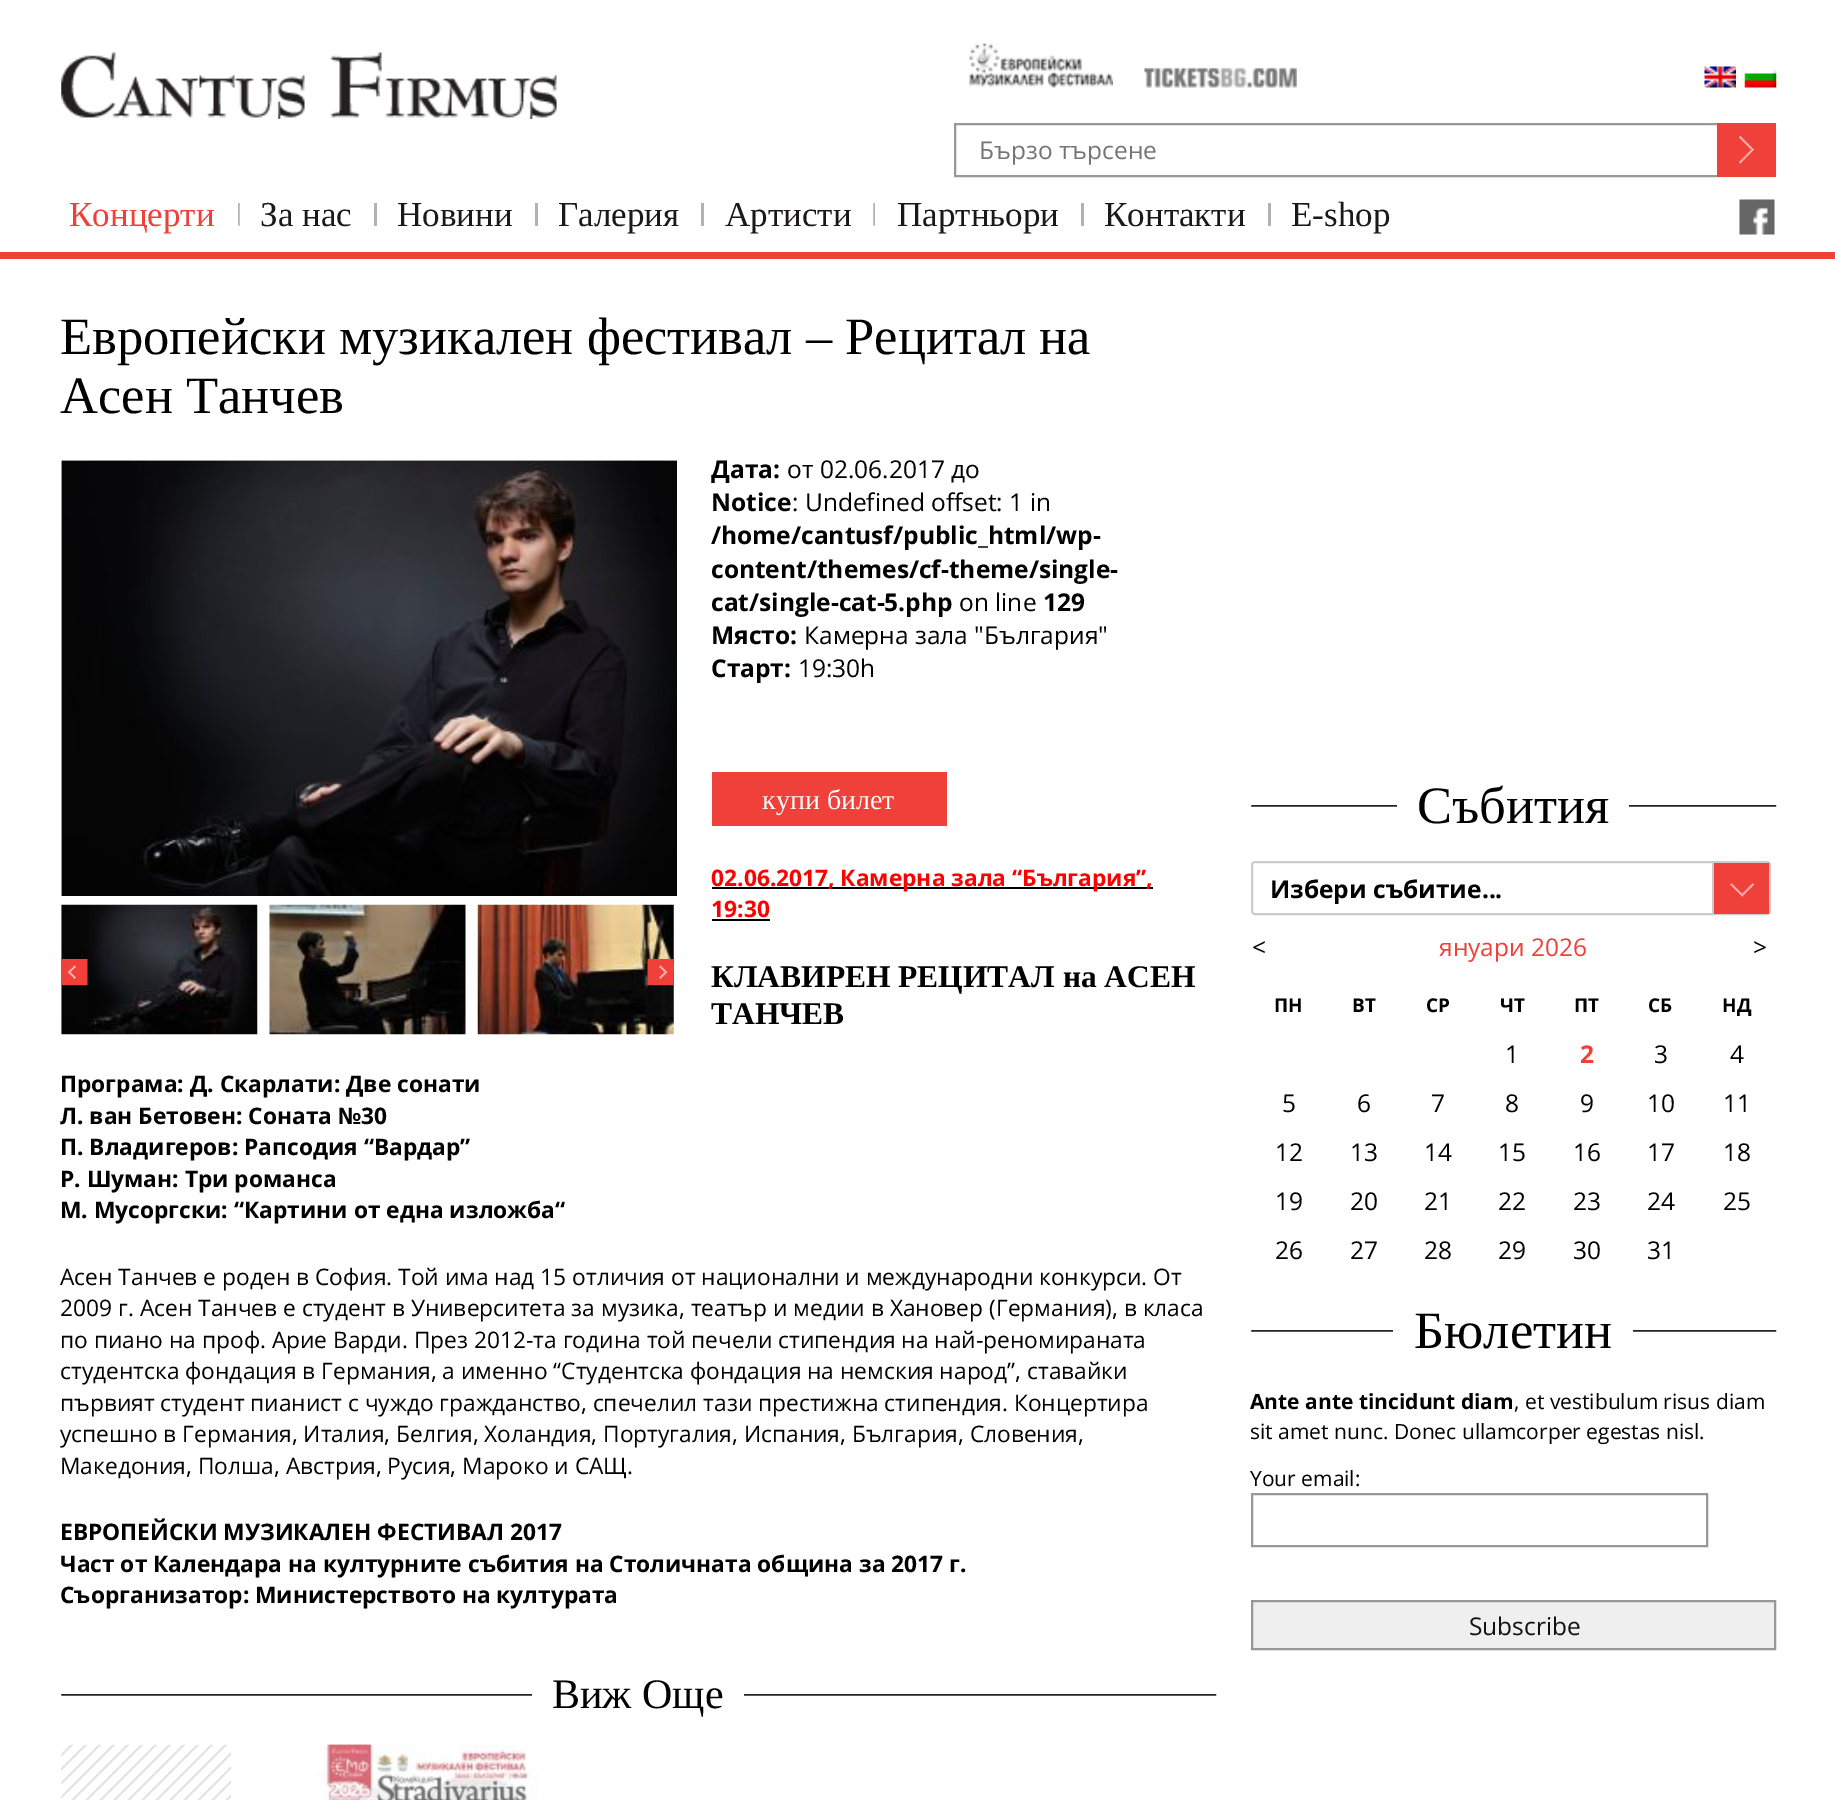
%!PS-Adobe-3.0
%%BoundingBox: 0 0 1835 1800
%%LanguageLevel: 3
%%Pages: 1
%%EndComments
%%BeginProlog
/setink { 3 { 255 div 3 1 roll } repeat setrgbcolor } def
/usefont { [ exch dup neg 0 0 3 -1 roll 0 0 ] selectfont } def
/drawtext { setink usefont moveto show } def
/fillbox { setink rectfill } def
/rrect { 5 dict begin { /r /h /w /y /x } { exch def } forall
  x r add y moveto x w add y 2 copy h add r arct x w add y h add x 1 index r arct
  x y h add x y r arct x y 2 copy exch w add exch r arct closepath end } def
/drawimage { 5 dict begin { /h /w /y /x /name } { exch def } forall
  gsave x y translate w h scale
  w h 8 [w 0 0 h 0 0] name (r) file false 3 colorimage grestore end } def
%%EndProlog
%%BeginSetup
<< /PageSize [1835 1800] >> setpagedevice
%%EndSetup
%%Page: 1 1
0 1800 translate 1 -1 scale
4 setmiterlimit
0 0 1835 1800 255 255 255 fillbox
0 252 1835 7 239 64 58 fillbox
(assets/img1.rgb) 61 52 496 67 drawimage
(assets/img2.rgb) 969 43 144 45 drawimage
(assets/img3.rgb) 1144 67 153 21 drawimage
(assets/img4.rgb) 1704 66 32 22 drawimage
(assets/img5.rgb) 1744 69 33 19 drawimage
152 152 152 setink
2 setlinewidth
955 124 763 52 rectstroke
(Бързо търсене) 979 159 /OpenSans-Regular 24.5 117 117 117 drawtext
1717 123 59 54 239 64 58 fillbox
(assets/img6.rgb) 1739 136 15 28 drawimage
(Концерти) 69 226 /LiberationSerif-Regular 35 239 64 58 drawtext
(assets/img7.rgb) 238 203 2 23 drawimage
(За нас) 260 226 /LiberationSerif-Regular 35 26 24 24 drawtext
374 203 3 23 178 178 178 fillbox
(Новини) 397 226 /LiberationSerif-Regular 35 26 24 24 drawtext
535 203 3 23 178 178 178 fillbox
(Галерия) 558 226 /LiberationSerif-Regular 35 26 24 24 drawtext
701 203 3 23 178 178 178 fillbox
(Артисти) 725 226 /LiberationSerif-Regular 35 26 24 24 drawtext
(assets/img8.rgb) 873 203 2 23 drawimage
(Партньори) 897 226 /LiberationSerif-Regular 35 26 24 24 drawtext
1081 203 3 23 178 178 178 fillbox
(Контакти) 1104 226 /LiberationSerif-Regular 35 26 24 24 drawtext
1268 203 3 23 178 178 178 fillbox
(E-shop) 1291 226 /LiberationSerif-Regular 35 26 24 24 drawtext
(assets/img9.rgb) 1739 199 36 36 drawimage
(Европейски музикален фестивал – Рецитал на) 60 354 /LiberationSerif-Regular 52.5 0 0 0 drawtext
(Асен Танчев) 60 413 /LiberationSerif-Regular 52.5 0 0 0 drawtext
(Дата:) 711 478 /OpenSans-Bold 24.5 0 0 0 drawtext
(от 02.06.2017 до) 787 478 /OpenSans-Regular 24.5 0 0 0 drawtext
(Notice) 711 511 /OpenSans-Bold 24.5 0 0 0 drawtext
(: Undefined offset: 1 in) 792 511 /OpenSans-Regular 24.5 0 0 0 drawtext
(/home/cantusf/public_html/wp-) 711 544 /OpenSans-Bold 24.5 0 0 0 drawtext
(content/themes/cf-theme/single-) 711 578 /OpenSans-Bold 24.5 0 0 0 drawtext
(cat/single-cat-5.php) 711 611 /OpenSans-Bold 24.5 0 0 0 drawtext
(on line) 959 611 /OpenSans-Regular 24.5 0 0 0 drawtext
(129) 1043 611 /OpenSans-Bold 24.5 0 0 0 drawtext
(Място:) 711 644 /OpenSans-Bold 24.5 0 0 0 drawtext
(Камерна зала "България") 804 644 /OpenSans-Regular 24.5 0 0 0 drawtext
(Старт:) 711 677 /OpenSans-Bold 24.5 0 0 0 drawtext
(19:30h) 798 677 /OpenSans-Regular 24.5 0 0 0 drawtext
712 772 235 54 239 64 58 fillbox
(купи билет) 762 809 /LiberationSerif-Regular 28 254 254 254 drawtext
712 887 441 2 0 0 0 fillbox
(02.06.2017, Камерна зала “България”,) 711 886 /OpenSans-Bold 22.75 255 0 0 drawtext
(19:30) 711 917 /OpenSans-Bold 22.75 255 0 0 drawtext
712 919 58 2 0 0 0 fillbox
(КЛАВИРЕН РЕЦИТАЛ на АСЕН) 711 987 /LiberationSerif-Bold 31.5 0 0 0 drawtext
(ТАНЧЕВ) 711 1024 /LiberationSerif-Bold 31.5 0 0 0 drawtext
(Програма: Д. Скарлати: Две сонати) 60 1092 /OpenSans-Bold 22.75 0 0 0 drawtext
(Л. ван Бетовен: Соната №30) 60 1124 /OpenSans-Bold 22.75 0 0 0 drawtext
(П. Владигеров: Рапсодия “Вардар”) 60 1155 /OpenSans-Bold 22.75 0 0 0 drawtext
(Р. Шуман: Три романса) 60 1187 /OpenSans-Bold 22.75 0 0 0 drawtext
(М. Мусоргски: “Картини от една изложба“) 60 1218 /OpenSans-Bold 22.75 0 0 0 drawtext
(Асен Танчев е роден в София. Той има над 15 отличия от национални и международни конкурси. От) 60 1285 /OpenSans-Regular 22.75 0 0 0 drawtext
(2009 г. Асен Танчев е студент в Университета за музика, театър и медии в Хановер \(Германия\), в класа) 60 1316 /OpenSans-Regular 22.75 0 0 0 drawtext
(по пиано на проф. Арие Варди. През 2012-та година той печели стипендия на най-реномираната) 60 1348 /OpenSans-Regular 22.75 0 0 0 drawtext
(студентска фондация в Германия, а именно “Студентска фондация на немския народ”, ставайки) 60 1379 /OpenSans-Regular 22.75 0 0 0 drawtext
(първият студент пианист с чуждо гражданство, спечелил тази престижна стипендия. Концертира) 60 1411 /OpenSans-Regular 22.75 0 0 0 drawtext
(успешно в Германия, Италия, Белгия, Холандия, Португалия, Испания, България, Словения,) 60 1442 /OpenSans-Regular 22.75 0 0 0 drawtext
(Македония, Полша, Австрия, Русия, Мароко и САЩ.) 60 1474 /OpenSans-Regular 22.75 0 0 0 drawtext
(ЕВРОПЕЙСКИ МУЗИКАЛЕН ФЕСТИВАЛ 2017) 60 1540 /OpenSans-Bold 22.75 0 0 0 drawtext
(Част от Календара на културните събития на Столичната община за 2017 г.) 60 1572 /OpenSans-Bold 22.75 0 0 0 drawtext
(Съорганизатор: Министерството на културата) 60 1603 /OpenSans-Bold 22.75 0 0 0 drawtext
(assets/img10.rgb) 61 460 616 436 drawimage
(assets/img11.rgb) 61 904 197 131 drawimage
(assets/img12.rgb) 269 904 197 131 drawimage
(assets/img13.rgb) 477 904 197 131 drawimage
(assets/img14.rgb) 61 959 27 27 drawimage
(assets/img15.rgb) 647 959 27 27 drawimage
(assets/img16.rgb) 61 1694 1156 2 drawimage
532 1694 212 2 255 255 255 fillbox
(Виж Още) 552 1708 /LiberationSerif-Regular 42 0 0 0 drawtext
(assets/img17.rgb) 61 1744 170 56 drawimage
(assets/img18.rgb) 315 1744 224 56 drawimage
(assets/img19.rgb) 1251 805 526 2 drawimage
1397 805 232 2 255 255 255 fillbox
(Събития) 1417 823 /LiberationSerif-Regular 52.5 0 0 0 drawtext
204 204 204 setink
1252 862 518 52 3 rrect stroke
(Избери събитие...) 1270 898 /OpenSans-Bold 24.5 0 0 0 drawtext
1714 863 55 51 239 64 58 fillbox
(assets/img20.rgb) 1730 883 24 14 drawimage
1712 863 2 51 204 204 204 fillbox
(януари 2026) 1439 956 /OpenSans-Regular 24.5 239 64 58 drawtext
(<) 1252 956 /OpenSans-Regular 24.5 0 0 0 drawtext
(>) 1753 956 /OpenSans-Regular 24.5 0 0 0 drawtext
(ПН) 1274 1012 /OpenSans-Bold 19 0 0 0 drawtext
(ВТ) 1352 1012 /OpenSans-Bold 19 0 0 0 drawtext
(СР) 1426 1012 /OpenSans-Bold 19 0 0 0 drawtext
(ЧТ) 1500 1012 /OpenSans-Bold 19 0 0 0 drawtext
(ПТ) 1574 1012 /OpenSans-Bold 19 0 0 0 drawtext
(СБ) 1648 1012 /OpenSans-Bold 19 0 0 0 drawtext
(НД) 1722 1012 /OpenSans-Bold 19 0 0 0 drawtext
(1) 1505 1063 /OpenSans-Regular 24.5 0 0 0 drawtext
(2) 1580 1063 /OpenSans-Bold 24.5 239 64 58 drawtext
(3) 1654 1063 /OpenSans-Regular 24.5 0 0 0 drawtext
(4) 1730 1063 /OpenSans-Regular 24.5 0 0 0 drawtext
(5) 1282 1112 /OpenSans-Regular 24.5 0 0 0 drawtext
(6) 1357 1112 /OpenSans-Regular 24.5 0 0 0 drawtext
(7) 1431 1112 /OpenSans-Regular 24.5 0 0 0 drawtext
(8) 1505 1112 /OpenSans-Regular 24.5 0 0 0 drawtext
(9) 1580 1112 /OpenSans-Regular 24.5 0 0 0 drawtext
(10) 1647 1112 /OpenSans-Regular 24.5 0 0 0 drawtext
(11) 1723 1112 /OpenSans-Regular 24.5 0 0 0 drawtext
(12) 1275 1161 /OpenSans-Regular 24.5 0 0 0 drawtext
(13) 1350 1161 /OpenSans-Regular 24.5 0 0 0 drawtext
(14) 1424 1161 /OpenSans-Regular 24.5 0 0 0 drawtext
(15) 1498 1161 /OpenSans-Regular 24.5 0 0 0 drawtext
(16) 1573 1161 /OpenSans-Regular 24.5 0 0 0 drawtext
(17) 1647 1161 /OpenSans-Regular 24.5 0 0 0 drawtext
(18) 1723 1161 /OpenSans-Regular 24.5 0 0 0 drawtext
(19) 1275 1210 /OpenSans-Regular 24.5 0 0 0 drawtext
(20) 1350 1210 /OpenSans-Regular 24.5 0 0 0 drawtext
(21) 1424 1210 /OpenSans-Regular 24.5 0 0 0 drawtext
(22) 1498 1210 /OpenSans-Regular 24.5 0 0 0 drawtext
(23) 1573 1210 /OpenSans-Regular 24.5 0 0 0 drawtext
(24) 1647 1210 /OpenSans-Regular 24.5 0 0 0 drawtext
(25) 1723 1210 /OpenSans-Regular 24.5 0 0 0 drawtext
(26) 1275 1259 /OpenSans-Regular 24.5 0 0 0 drawtext
(27) 1350 1259 /OpenSans-Regular 24.5 0 0 0 drawtext
(28) 1424 1259 /OpenSans-Regular 24.5 0 0 0 drawtext
(29) 1498 1259 /OpenSans-Regular 24.5 0 0 0 drawtext
(30) 1573 1259 /OpenSans-Regular 24.5 0 0 0 drawtext
(31) 1647 1259 /OpenSans-Regular 24.5 0 0 0 drawtext
(assets/img19.rgb) 1251 1330 526 2 drawimage
1393 1330 240 2 255 255 255 fillbox
(Бюлетин) 1414 1348 /LiberationSerif-Regular 52.5 0 0 0 drawtext
(Ante ante tincidunt diam) 1250 1409 /OpenSans-Bold 21 0 0 0 drawtext
(, et vestibulum risus diam) 1514 1409 /OpenSans-Regular 21 0 0 0 drawtext
(sit amet nunc. Donec ullamcorper egestas nisl.) 1250 1439 /OpenSans-Regular 21 0 0 0 drawtext
(Your email:) 1250 1486 /OpenSans-Regular 21 0 0 0 drawtext
152 152 152 setink
1252 1494 455 52 rectstroke
239 239 239 setink
1252 1601 moveto 1775 1601 lineto 1775 1649 lineto 1252 1649 lineto closepath gsave fill grestore
152 152 152 setink
stroke
(Subscribe) 1469 1635 /OpenSans-Regular 24.5 19 18 18 drawtext
showpage
%%EOF
